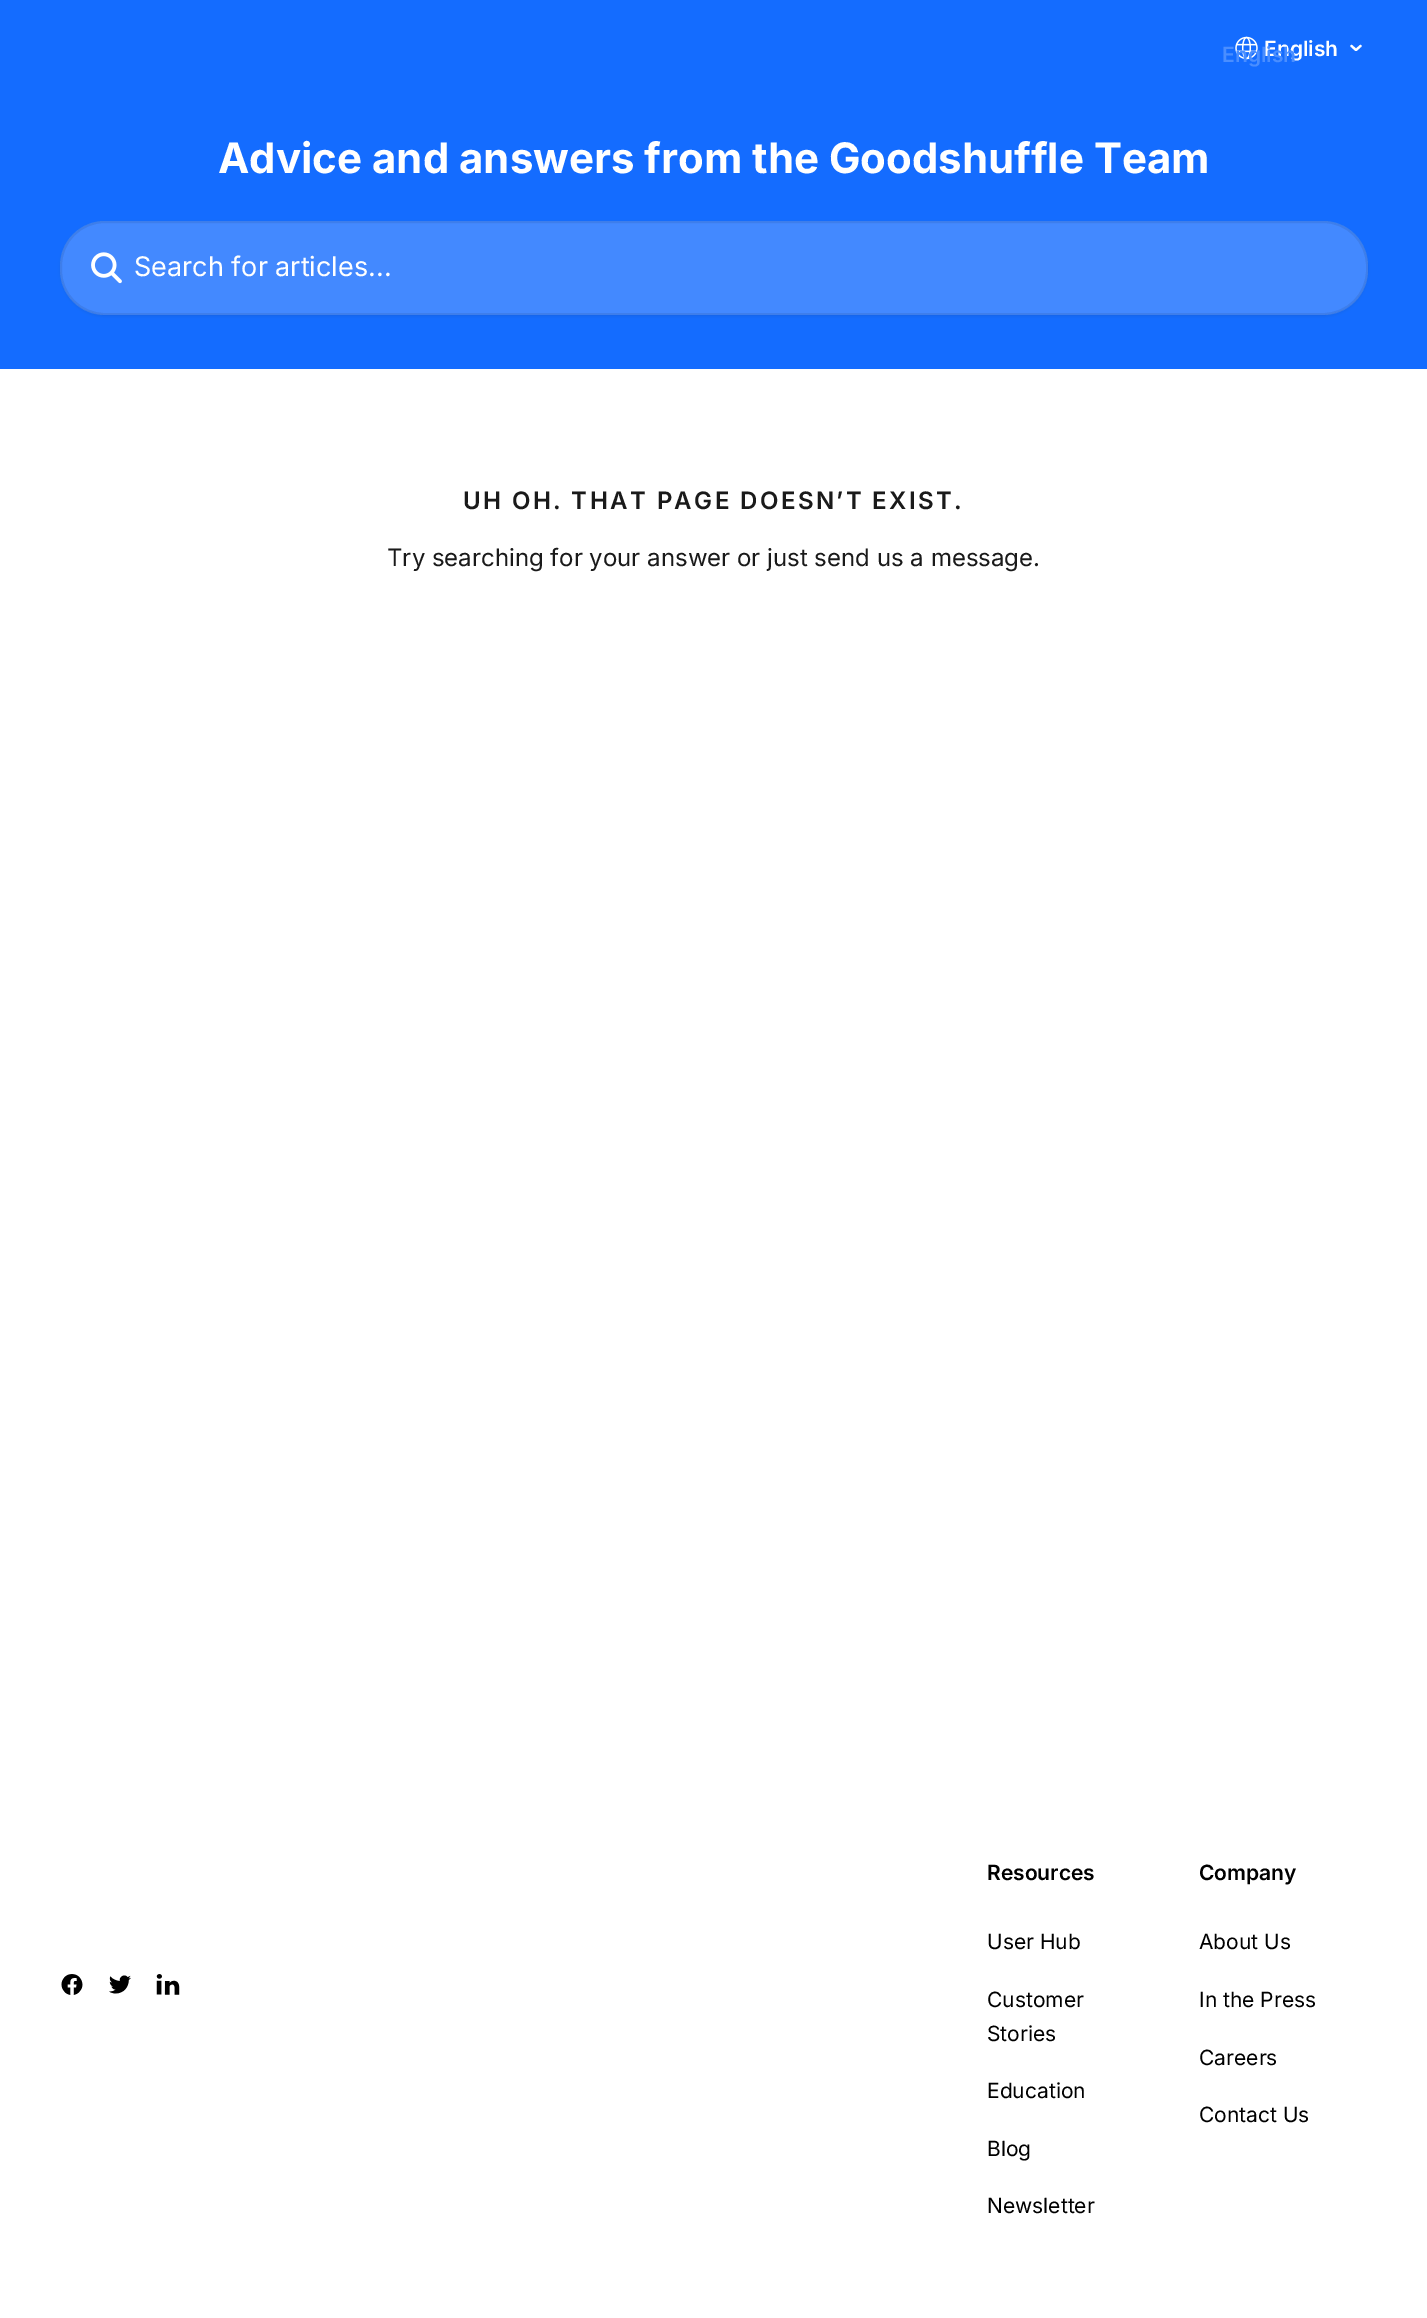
%!PS-Adobe-3.0
%%BoundingBox: 0 0 1427 2318
%%LanguageLevel: 3
%%Pages: 1
%%EndComments
%%BeginProlog
/setink { 3 { 255 div 3 1 roll } repeat setrgbcolor } def
/usefont { [ exch dup neg 0 0 3 -1 roll 0 0 ] selectfont } def
/drawtext { setink usefont moveto show } def
/fillbox { setink rectfill } def
/setalpha { dup .setfillconstantalpha .setstrokeconstantalpha } def
/rrect { 5 dict begin { /r /h /w /y /x } { exch def } forall
  x r add y moveto x w add y 2 copy h add r arct x w add y h add x 1 index r arct
  x y h add x y r arct x y 2 copy exch w add exch r arct closepath end } def
/softshadow { 12 dict begin { /a /b /q /h /w /y /x } { exch def } forall gsave /was 0 def
  9 -2 -9 { dup b mul 4 div /e exch def 1 sub .425 mul 2.718 exch exp 1 add a .99 .min exch div /now exch def
    1 1 now sub 1 was sub div sub setalpha /was now def
    w h .min e 2 mul add 0 gt { x e sub y e sub w e 2 mul add h e 2 mul add
      q e add b .6 mul add w h .min 2 div e add .min 0 .max rrect fill } if } for grestore end } def
/drawimage { 5 dict begin { /h /w /y /x /name } { exch def } forall
  gsave x y translate w h scale
  w h 8 [w 0 0 h 0 0] name (r) file false 3 colorimage grestore end } def
%%EndProlog
%%BeginSetup
<< /PageSize [1427 2318] /PageUsesTransparency true >> setpagedevice
%%EndSetup
%%Page: 1 1
0 .pushpdf14devicefilter
0 2318 translate 1 -1 scale
4 setmiterlimit
0 0 1427 2318 255 255 255 fillbox
0 0 1427 369 20 108 255 fillbox
(assets/img1.rgb) 1235 36 23 24 drawimage
(English) 1264 56 /Inter-SemiBold 21 255 255 255 drawtext
(English) 1222 62 /Inter-SemiBold 21 74 142 255 drawtext
255 255 255 setink
2.2 setlinewidth
1 setlinecap
1 setlinejoin
1351.5 46 moveto 1356 50 lineto 1360.5 46 lineto stroke
(Advice and answers from the Goodshuffle Team) 218 173 /Inter-Bold 42 255 255 255 drawtext
gsave
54 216 moveto 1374 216 lineto 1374 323 lineto 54 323 lineto closepath 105 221 moveto 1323 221 lineto 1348 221 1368 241 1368 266 curveto 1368 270 lineto 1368 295 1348 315 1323 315 curveto 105 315 lineto 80 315 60 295 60 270 curveto 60 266 lineto 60 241 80 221 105 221 curveto closepath eoclip newpath
0 0 0 setink
60 222 1308 95 45 1.5 0.05 softshadow
grestore
0.2 setalpha
60 221 1308 94 45 rrect fill
0.08 setalpha
0 0 0 setink
2 setlinewidth
0 setlinecap
0 setlinejoin
61 222 1306 92 44 rrect stroke
1 setalpha
(assets/img2.rgb) 91 252 31 32 drawimage
(Search for articles...) 134 276 /Inter-Regular 27 255 255 255 drawtext
/Inter-SemiBold 24 usefont
26 26 26 setink
463 509 moveto 2.4 0 (UH OH. THAT PAGE DOESN’T EXIST.) ashow
(Try searching for your answer or just send us a message.) 387 566 /Inter-Regular 24 26 26 26 drawtext
(assets/img3.rgb) 61 1974 22 21 drawimage
(assets/img4.rgb) 109 1975 22 19 drawimage
(assets/img5.rgb) 156 1974 24 21 drawimage
(Resources) 987 1880 /Inter-SemiBold 21 0 0 0 drawtext
(User Hub) 987 1949 /Inter-Regular 21 0 0 0 drawtext
(Customer) 987 2007 /Inter-Regular 21 0 0 0 drawtext
(Stories) 987 2041 /Inter-Regular 21 0 0 0 drawtext
(Education) 987 2098 /Inter-Regular 21 0 0 0 drawtext
(Blog) 987 2156 /Inter-Regular 21 0 0 0 drawtext
(Newsletter) 987 2213 /Inter-Regular 21 0 0 0 drawtext
(Company) 1199 1880 /Inter-SemiBold 21 0 0 0 drawtext
(About Us) 1199 1949 /Inter-Regular 21 0 0 0 drawtext
(In the Press) 1199 2007 /Inter-Regular 21 0 0 0 drawtext
(Careers) 1199 2065 /Inter-Regular 21 0 0 0 drawtext
(Contact Us) 1199 2122 /Inter-Regular 21 0 0 0 drawtext
.poppdf14devicefilter showpage
%%EOF
